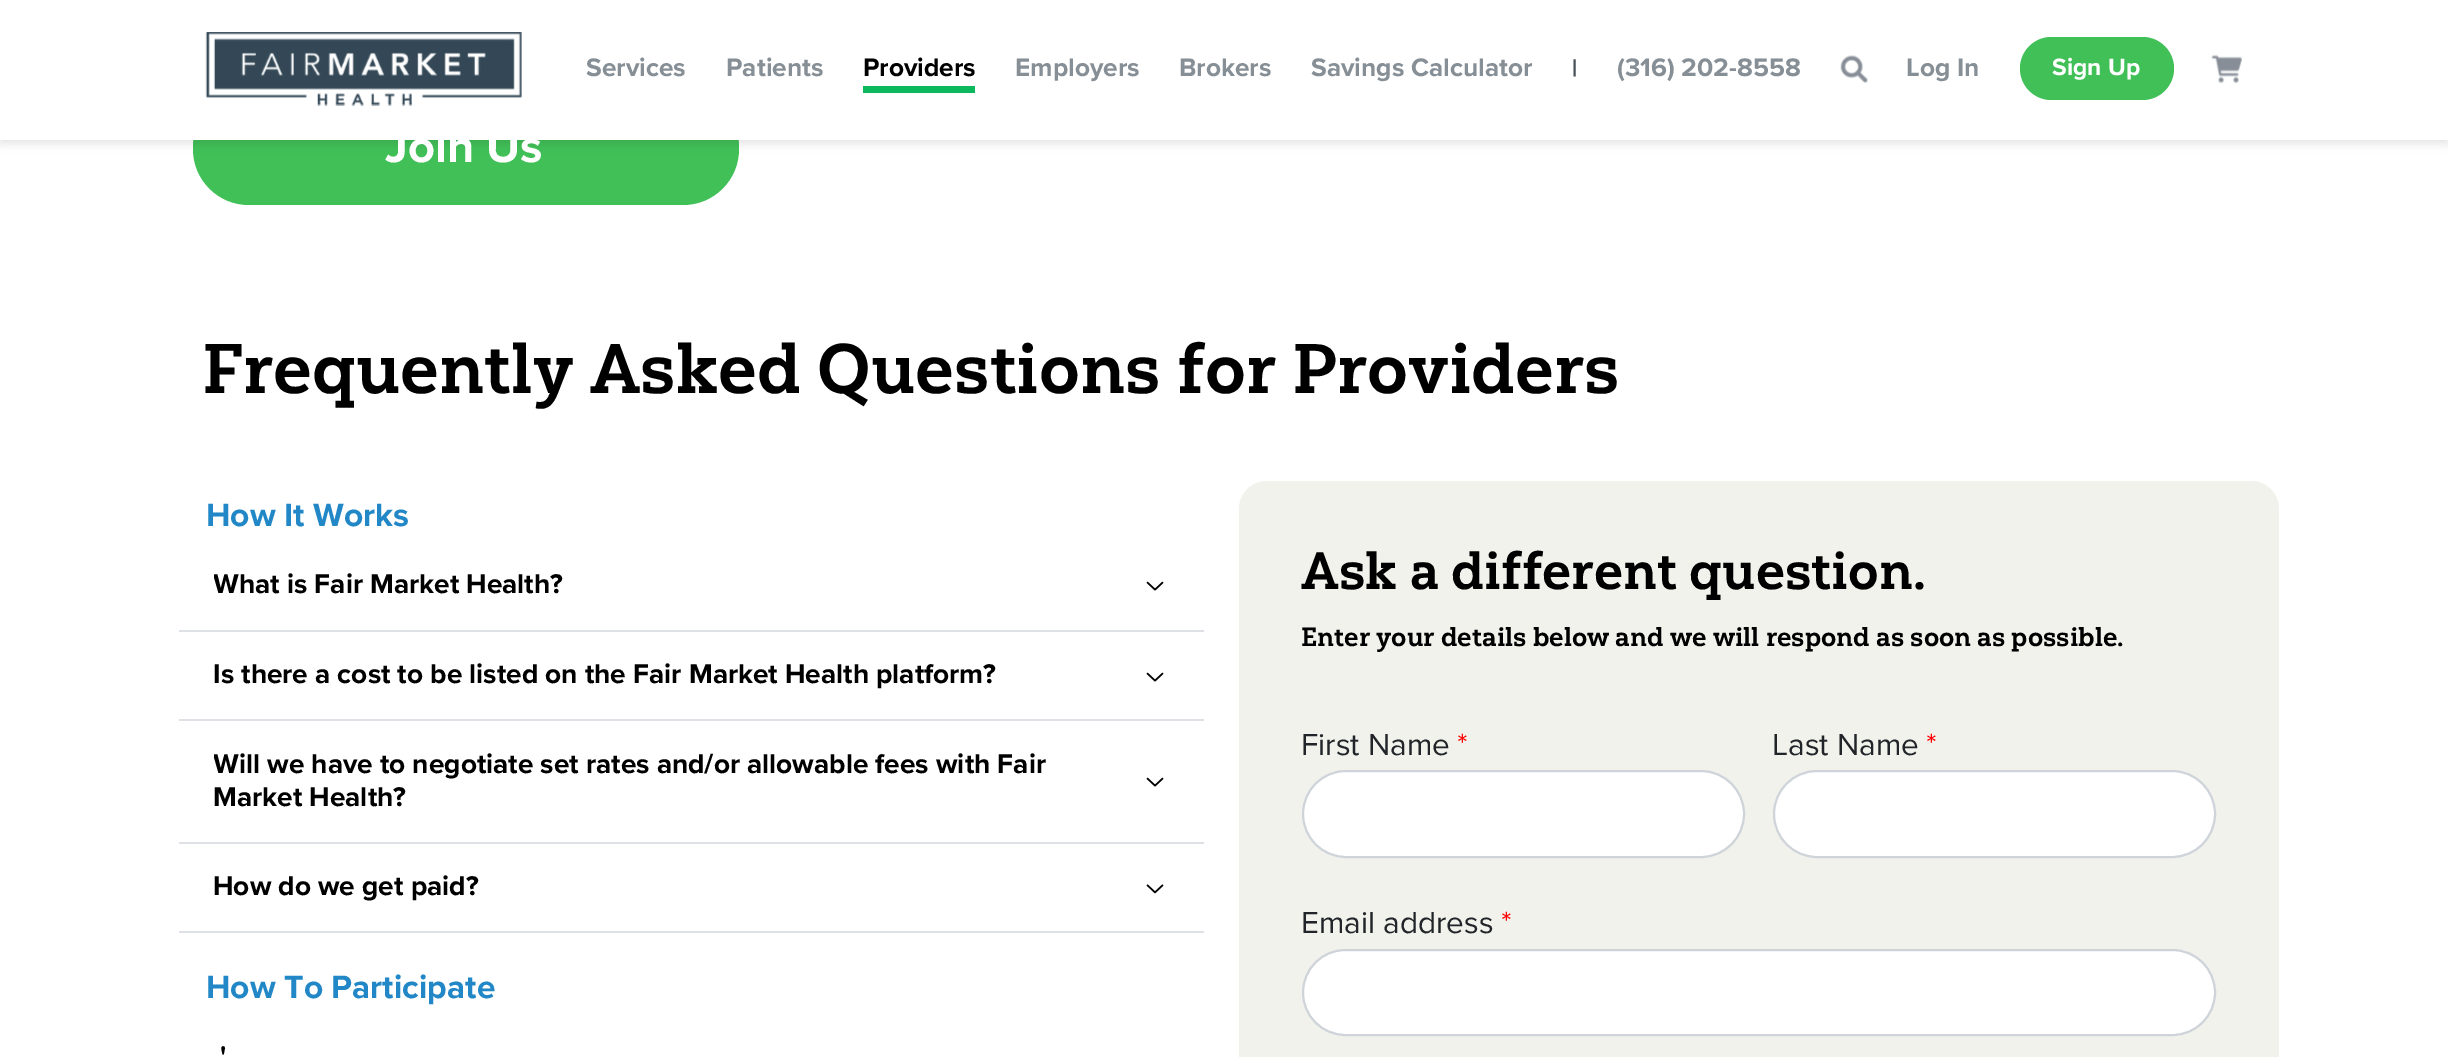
%!PS-Adobe-3.0
%%BoundingBox: 0 0 2448 1057
%%LanguageLevel: 3
%%Pages: 1
%%EndComments
%%BeginProlog
/setink { 3 { 255 div 3 1 roll } repeat setrgbcolor } def
/usefont { [ exch dup neg 0 0 3 -1 roll 0 0 ] selectfont } def
/drawtext { setink usefont moveto show } def
/fillbox { setink rectfill } def
/setalpha { dup .setfillconstantalpha .setstrokeconstantalpha } def
/rrect { 5 dict begin { /r /h /w /y /x } { exch def } forall
  x r add y moveto x w add y 2 copy h add r arct x w add y h add x 1 index r arct
  x y h add x y r arct x y 2 copy exch w add exch r arct closepath end } def
/softshadow { 12 dict begin { /a /b /q /h /w /y /x } { exch def } forall gsave /was 0 def
  9 -2 -9 { dup b mul 4 div /e exch def 1 sub .425 mul 2.718 exch exp 1 add a .99 .min exch div /now exch def
    1 1 now sub 1 was sub div sub setalpha /was now def
    w h .min e 2 mul add 0 gt { x e sub y e sub w e 2 mul add h e 2 mul add
      q e add b .6 mul add w h .min 2 div e add .min 0 .max rrect fill } if } for grestore end } def
/drawimage { 5 dict begin { /h /w /y /x /name } { exch def } forall
  gsave x y translate w h scale
  w h 8 [w 0 0 h 0 0] name (r) file false 3 colorimage grestore end } def
%%EndProlog
%%BeginSetup
<< /PageSize [2448 1057] /PageUsesTransparency true >> setpagedevice
%%EndSetup
%%Page: 1 1
0 .pushpdf14devicefilter
0 1057 translate 1 -1 scale
4 setmiterlimit
0 0 2448 1057 255 255 255 fillbox
64 192 87 setink
193 91 546 114 56 rrect fill
0 0 0 setink
0 4 2448 140 0 4.5 0.1 softshadow
0 0 2448 140 255 255 255 fillbox
(assets/img1.rgb) 205 32 317 74 drawimage
(Services) 586 76 /ProximaNova-Bold 26.25 134 142 150 drawtext
(Patients) 726 76 /ProximaNova-Bold 26.25 134 142 150 drawtext
(Providers) 863 76 /ProximaNova-Bold 26.25 0 0 0 drawtext
863 86 112 7 11 184 92 fillbox
(Employers) 1015 76 /ProximaNova-Bold 26.25 134 142 150 drawtext
(Brokers) 1179 76 /ProximaNova-Bold 26.25 134 142 150 drawtext
(Savings Calculator) 1311 76 /ProximaNova-Bold 26.25 134 142 150 drawtext
(|) 1572 76 /ProximaNova-Bold 24.5 73 80 87 drawtext
(\(316\) 202-8558) 1617 76 /ProximaNova-Bold 26.25 134 142 150 drawtext
(assets/img2.rgb) 1840 55 28 28 drawimage
(Log In) 1906 76 /ProximaNova-Bold 26.25 134 142 150 drawtext
64 192 87 setink
2020 37 154 63 31.5 rrect fill
(Sign Up) 2052 75 /ProximaNova-Bold 24.5 255 255 255 drawtext
(assets/img3.rgb) 2211 54 31 30 drawimage
(Join Us) 385 162 /ProximaNova-Bold 47 255 255 255 drawtext
(Frequently Asked Questions for Providers) 202 393 /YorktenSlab-ExtraBold 70 0 0 0 drawtext
(How It Works) 206 526 /ProximaNova-Bold 33.5 34 135 198 drawtext
179 630 1025 2 222 226 230 fillbox
gsave
214 569 885 33 rectclip
(What is Fair Market Health?) 213 593 /ProximaNova-Bold 28 0 0 0 drawtext
grestore
(assets/img4.rgb) 1146 581 18 10 drawimage
179 719 1025 2 222 226 230 fillbox
(Is there a cost to be listed on the Fair Market Health platform?) 213 683 /ProximaNova-Bold 28 0 0 0 drawtext
(assets/img4.rgb) 1146 672 18 10 drawimage
179 842 1025 2 222 226 230 fillbox
gsave
214 749 885 65 rectclip
(Will we have to negotiate set rates and/or allowable fees with Fair) 213 773 /ProximaNova-Bold 28 0 0 0 drawtext
grestore
(Market Health?) 213 806 /ProximaNova-Bold 28 0 0 0 drawtext
(assets/img4.rgb) 1146 777 18 10 drawimage
179 931 1025 2 222 226 230 fillbox
(How do we get paid?) 213 895 /ProximaNova-Bold 28 0 0 0 drawtext
(assets/img5.rgb) 1146 884 18 10 drawimage
(How To Participate) 206 998 /ProximaNova-Bold 33.5 34 135 198 drawtext
(') 220 1065 /ProximaNova-Bold 28 0 0 0 drawtext
242 242 236 setink
1239 481 1040 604 28 rrect fill
(Ask a different question.) 1301 589 /YorktenSlab-ExtraBold 52.5 0 0 0 drawtext
(Enter your details below and we will respond as soon as possible.) 1301 646 /YorktenSlab-ExtraBold 26.25 0 0 0 drawtext
(First Name) 1301 755 /ProximaNova-Regular 31.5 33 37 41 drawtext
(*) 1457 755 /ProximaNova-Regular 31.5 255 0 0 drawtext
255 255 255 setink
1303 771 441 86 43 rrect gsave fill grestore
206 212 218 setink
2 setlinewidth
stroke
(Last Name) 1772 755 /ProximaNova-Regular 31.5 33 37 41 drawtext
(*) 1926 755 /ProximaNova-Regular 31.5 255 0 0 drawtext
255 255 255 setink
1774 771 441 86 43 rrect gsave fill grestore
206 212 218 setink
stroke
(Email address) 1301 933 /ProximaNova-Regular 31.5 33 37 41 drawtext
(*) 1501 933 /ProximaNova-Regular 31.5 255 0 0 drawtext
255 255 255 setink
1303 950 912 85 42.5 rrect gsave fill grestore
206 212 218 setink
stroke
.poppdf14devicefilter showpage
%%EOF
